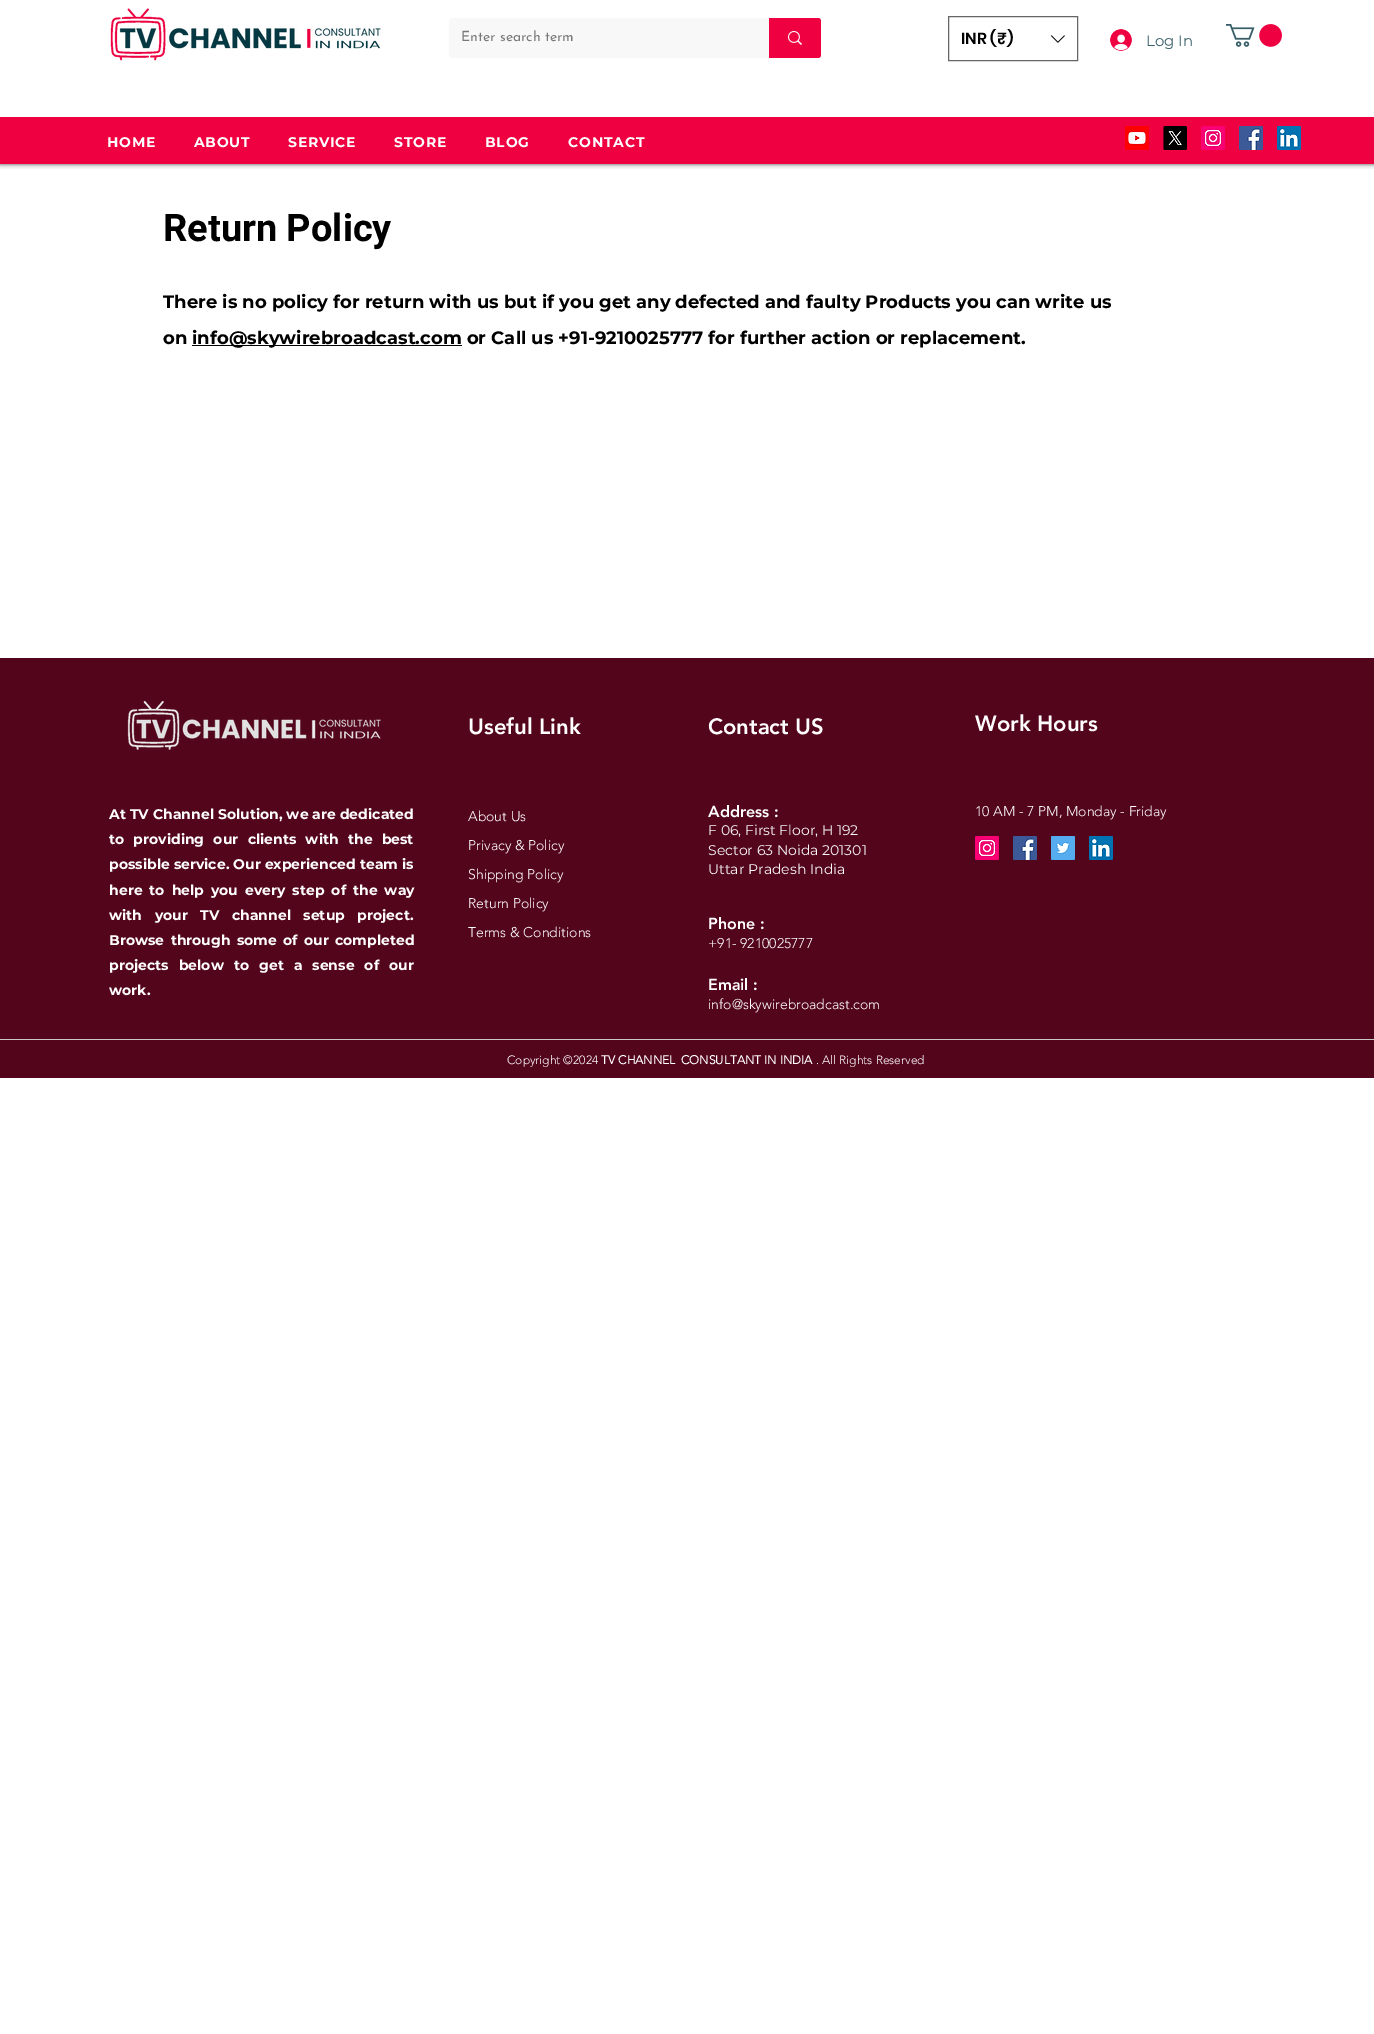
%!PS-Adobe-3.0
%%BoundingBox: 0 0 1374 2034
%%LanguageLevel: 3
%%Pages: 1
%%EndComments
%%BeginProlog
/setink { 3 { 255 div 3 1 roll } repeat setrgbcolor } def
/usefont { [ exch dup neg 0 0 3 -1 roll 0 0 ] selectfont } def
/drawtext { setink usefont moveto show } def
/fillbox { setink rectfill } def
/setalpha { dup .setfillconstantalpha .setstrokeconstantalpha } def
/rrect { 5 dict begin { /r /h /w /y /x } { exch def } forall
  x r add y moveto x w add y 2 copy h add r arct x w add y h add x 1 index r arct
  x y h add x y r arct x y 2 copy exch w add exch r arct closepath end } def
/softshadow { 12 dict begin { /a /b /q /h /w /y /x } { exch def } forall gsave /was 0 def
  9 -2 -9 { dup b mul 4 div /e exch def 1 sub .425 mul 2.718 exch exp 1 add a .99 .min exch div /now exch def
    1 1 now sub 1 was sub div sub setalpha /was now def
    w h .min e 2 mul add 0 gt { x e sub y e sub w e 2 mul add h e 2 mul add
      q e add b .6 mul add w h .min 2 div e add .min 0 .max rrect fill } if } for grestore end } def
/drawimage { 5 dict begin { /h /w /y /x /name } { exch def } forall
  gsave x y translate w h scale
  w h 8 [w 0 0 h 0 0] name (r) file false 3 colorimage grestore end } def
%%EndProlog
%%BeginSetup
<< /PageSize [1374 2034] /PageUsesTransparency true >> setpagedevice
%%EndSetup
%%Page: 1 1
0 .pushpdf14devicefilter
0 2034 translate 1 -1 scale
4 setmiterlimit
0 0 1374 2034 255 255 255 fillbox
gsave
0 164 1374 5 rectclip
0 0 0 setink
0 0 1374 164 0 2.5 0.7 softshadow
grestore
(assets/img1.rgb) 110 8 271 53 drawimage
248 248 248 setink
449 18 372 40 3 rrect fill
(Enter search term) 461 41 /JosefinSans-Regular 14 120 120 120 drawtext
238 0 65 setink
769 18 moveto 818 18 lineto 819.5 18 821 19.5 821 21 curveto 821 55 lineto 821 56.5 819.5 58 818 58 curveto 769 58 lineto closepath fill
(assets/img2.rgb) 788 31 14 14 drawimage
102 102 102 setink
948.5 16.5 129 44 rectstroke
gsave
961 29 81 20 rectclip
(INR \(₹\)) 961 44 /Poppins-SemiBold 16 0 0 0 drawtext
grestore
(assets/img3.rgb) 1050 35 15 8 drawimage
(assets/img4.rgb) 1110 29 22 22 drawimage
(Log In) 1146 46 /Montserrat-Regular 15 56 95 104 drawtext
(assets/img5.rgb) 1226 24 56 23 drawimage
0 117 1374 47 238 0 65 fillbox
/Montserrat-Bold 14 usefont
255 255 255 setink
107 147 moveto 0.75 0 (HOME) ashow
194 147 moveto 0.75 0 (ABOUT) ashow
288 147 moveto 0.75 0 (SERVICE) ashow
394 147 moveto 0.75 0 (STORE) ashow
485 147 moveto 0.75 0 (BLOG) ashow
568 147 moveto 0.75 0 (CONTACT) ashow
(assets/img6.rgb) 1125 126 24 24 drawimage
(assets/img7.rgb) 1163 126 24 24 drawimage
(assets/img8.rgb) 1201 126 24 24 drawimage
(assets/img9.rgb) 1239 126 24 24 drawimage
(assets/img10.rgb) 1277 126 24 24 drawimage
(Return Policy) 163 241 /Roboto-Bold 38 0 0 0 drawtext
(There is no policy for return with us but if you get any defected and faulty Products you can write us) 163 308 /Montserrat-Bold 18 0 0 0 drawtext
(on) 163 344 /Montserrat-Bold 18 0 0 0 drawtext
192 345 270 1 0 0 0 fillbox
(info@skywirebroadcast.com or Call us +91-9210025777 for further action or replacement.) 192 344 /Montserrat-Bold 18 0 0 0 drawtext
0 658 1374 420 83 5 27 fillbox
(assets/img11.rgb) 127 700 254 50 drawimage
(Useful Link) 468 734 /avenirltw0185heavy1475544-Black 22 255 255 255 drawtext
(Contact US) 708 734 /avenirltw0185heavy1475544-Black 22 255 255 255 drawtext
(Work Hours) 975 731 /avenirltw0185heavy1475544-Black 22 255 255 255 drawtext
(At TV Channel Solution, we are dedicated) 109 819 /Montserrat-Bold 14 255 255 255 drawtext
109 844 moveto 5.25 0 32 (to providing our clients with the best) widthshow
(possible service. Our experienced team is) 109 869 /Montserrat-Bold 14 255 255 255 drawtext
109 895 moveto 3 0 32 (here to help you every step of the way) widthshow
109 920 moveto 8.5 0 32 (with your TV channel setup project.) widthshow
109 945 moveto 2.25 0 32 (Browse through some of our completed) widthshow
109 970 moveto 6 0 32 (projects below to get a sense of our) widthshow
(work.) 109 995 /Montserrat-Bold 14 255 255 255 drawtext
(About Us) 468 821 /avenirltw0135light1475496-Light 14 255 255 255 drawtext
(Privacy & Policy) 468 850 /avenirltw0135light1475496-Light 14 255 255 255 drawtext
(Shipping Policy) 468 879 /avenirltw0135light1475496-Light 14 255 255 255 drawtext
(Return Policy) 468 908 /avenirltw0135light1475496-Light 14 255 255 255 drawtext
(Terms & Conditions) 468 937 /avenirltw0135light1475496-Light 14 255 255 255 drawtext
(Address :) 708 817 /avenirltw0185heavy1475544-Black 16 255 255 255 drawtext
(F 06, First Floor, H 192) 708 835 /Montserrat-Regular 14 248 248 248 drawtext
(Sector 63 Noida 201301) 708 855 /Montserrat-Regular 14 248 248 248 drawtext
(Uttar Pradesh India) 708 874 /Montserrat-Regular 14 248 248 248 drawtext
(10 AM - 7 PM, Monday - Friday) 975 816 /avenirltw0135light1475496-Light 14 255 255 255 drawtext
(assets/img12.rgb) 975 836 24 24 drawimage
(assets/img13.rgb) 1013 836 24 24 drawimage
(assets/img14.rgb) 1051 836 24 24 drawimage
(assets/img15.rgb) 1089 836 24 24 drawimage
(Phone :) 708 929 /avenirltw0185heavy1475544-Black 16 255 255 255 drawtext
(+91- 9210025777) 708 948 /avenirltw0135light1475496-Light 14 255 255 255 drawtext
(Email :) 708 990 /avenirltw0185heavy1475544-Black 16 255 255 255 drawtext
(info@skywirebroadcast.com) 708 1009 /avenirltw0135light1475496-Light 14 255 255 255 drawtext
0 1039 1374 1 199 199 199 fillbox
(Copyright ©2024) 507 1064 /avenirltw0135light1475496-Light 12 255 255 255 drawtext
(TV CHANNEL) 601 1064 /avenirltw0135light1475496-Bold 12 255 255 255 drawtext
(CONSULTANT IN INDIA) 681 1064 /avenirltw0135light1475496-Bold 12 255 255 255 drawtext
(. All Rights Reserved) 816 1064 /avenirltw0135light1475496-Light 12 255 255 255 drawtext
.poppdf14devicefilter showpage
%%EOF
